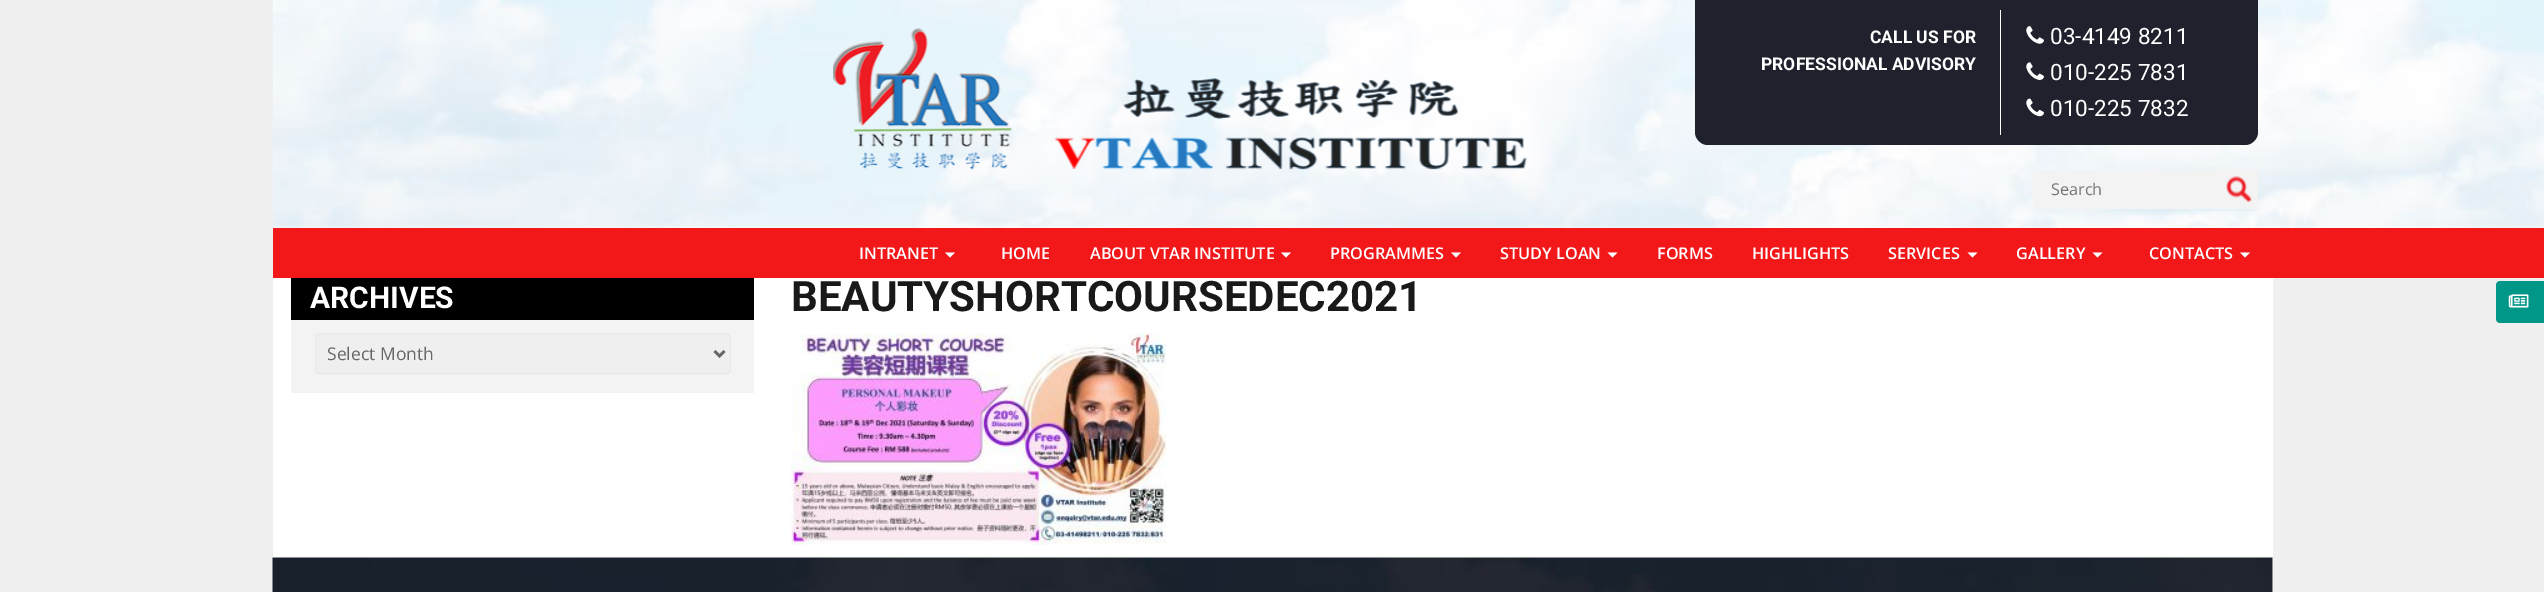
%!PS-Adobe-3.0
%%BoundingBox: 0 0 2544 592
%%LanguageLevel: 3
%%Pages: 1
%%EndComments
%%BeginProlog
/setink { 3 { 255 div 3 1 roll } repeat setrgbcolor } def
/usefont { [ exch dup neg 0 0 3 -1 roll 0 0 ] selectfont } def
/drawtext { setink usefont moveto show } def
/fillbox { setink rectfill } def
/rrect { 5 dict begin { /r /h /w /y /x } { exch def } forall
  x r add y moveto x w add y 2 copy h add r arct x w add y h add x 1 index r arct
  x y h add x y r arct x y 2 copy exch w add exch r arct closepath end } def
/drawimage { 5 dict begin { /h /w /y /x /name } { exch def } forall
  gsave x y translate w h scale
  w h 8 [w 0 0 h 0 0] name (r) file false 3 colorimage grestore end } def
%%EndProlog
%%BeginSetup
<< /PageSize [2544 592] >> setpagedevice
%%EndSetup
%%Page: 1 1
0 592 translate 1 -1 scale
4 setmiterlimit
0 0 2544 592 240 240 240 fillbox
273 278 2000 314 255 255 255 fillbox
273 225 2271 3 255 255 255 fillbox
(assets/img1.rgb) 273 0 2271 228 drawimage
(assets/img2.rgb) 833 28 179 142 drawimage
(assets/img3.rgb) 1054 78 473 92 drawimage
31 33 45 setink
1695 0 moveto 2258 0 lineto 2258 132 lineto 2258 139 2252 145 2245 145 curveto 1708 145 lineto 1701 145 1695 139 1695 132 curveto closepath fill
(CALL US FOR) 1870 43 /Roboto-Bold 17.5 255 255 255 drawtext
(PROFESSIONAL ADVISORY) 1761 70 /Roboto-Bold 17.5 255 255 255 drawtext
2000 10 1 125 255 255 255 fillbox
(assets/img4.rgb) 2026 26 18 18 drawimage
(03-4149 8211) 2050 44 /Roboto-Regular 22.5 255 255 255 drawtext
(assets/img5.rgb) 2026 62 18 18 drawimage
(010-225 7831) 2050 80 /Roboto-Regular 22.5 255 255 255 drawtext
(assets/img6.rgb) 2026 98 18 19 drawimage
(010-225 7832) 2050 116 /Roboto-Regular 22.5 255 255 255 drawtext
2033 170 225 39 243 243 243 fillbox
(Search) 2051 195 /OpenSans-Regular 16.25 117 117 117 drawtext
(assets/img7.rgb) 2226 176 26 27 drawimage
273 228 2271 50 242 24 26 fillbox
(INTRANET) 859 259 /OpenSans-SemiBold 16.25 255 255 255 drawtext
945 252.5 moveto 955 252.5 lineto 950 257.5 lineto closepath fill
(HOME) 1001 259 /OpenSans-SemiBold 16.25 255 255 255 drawtext
(ABOUT VTAR INSTITUTE) 1090 259 /OpenSans-SemiBold 16.25 255 255 255 drawtext
1281 252.5 moveto 1291 252.5 lineto 1286 257.5 lineto closepath fill
(PROGRAMMES) 1330 259 /OpenSans-SemiBold 16.25 255 255 255 drawtext
1451 252.5 moveto 1461 252.5 lineto 1456 257.5 lineto closepath fill
(STUDY LOAN) 1500 259 /OpenSans-SemiBold 16.25 255 255 255 drawtext
1607.5 252.5 moveto 1617.5 252.5 lineto 1612.5 257.5 lineto closepath fill
(FORMS) 1657 259 /OpenSans-SemiBold 16.25 255 255 255 drawtext
(HIGHLIGHTS) 1752 259 /OpenSans-SemiBold 16.25 255 255 255 drawtext
(SERVICES) 1888 259 /OpenSans-SemiBold 16.25 255 255 255 drawtext
1967.5 252.5 moveto 1977.5 252.5 lineto 1972.5 257.5 lineto closepath fill
(GALLERY) 2016 259 /OpenSans-SemiBold 16.25 255 255 255 drawtext
2092.5 252.5 moveto 2102.5 252.5 lineto 2097.5 257.5 lineto closepath fill
(CONTACTS) 2149 259 /OpenSans-SemiBold 16.25 255 255 255 drawtext
2240 252.5 moveto 2250 252.5 lineto 2245 257.5 lineto closepath fill
291 320 463 73 243 243 243 fillbox
291 278 463 42 0 0 0 fillbox
(ARCHIVES) 310 308 /Roboto-Bold 30 255 255 255 drawtext
239 239 239 setink
315.5 333.5 415 40 3.5 rrect gsave fill grestore
232 232 232 setink
stroke
102 102 102 setink
2.5 setlinewidth
714.5 351 moveto 719.5 356 lineto 724.5 351 lineto stroke
(Select Month) 327 360 /OpenSans-Regular 17.5 102 102 102 drawtext
(BEAUTYSHORTCOURSEDEC2021) 791 311 /Roboto-Bold 42 25 25 25 drawtext
(assets/img8.rgb) 791 333 376 212 drawimage
(assets/img9.rgb) 272 557 2001 35 drawimage
0 150 136 setink
2500 281 moveto 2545 281 lineto 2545 323 lineto 2500 323 lineto 2498 323 2496 321 2496 319 curveto 2496 285 lineto 2496 283 2498 281 2500 281 curveto closepath fill
(assets/img10.rgb) 2508 294 21 14 drawimage
showpage
%%EOF
